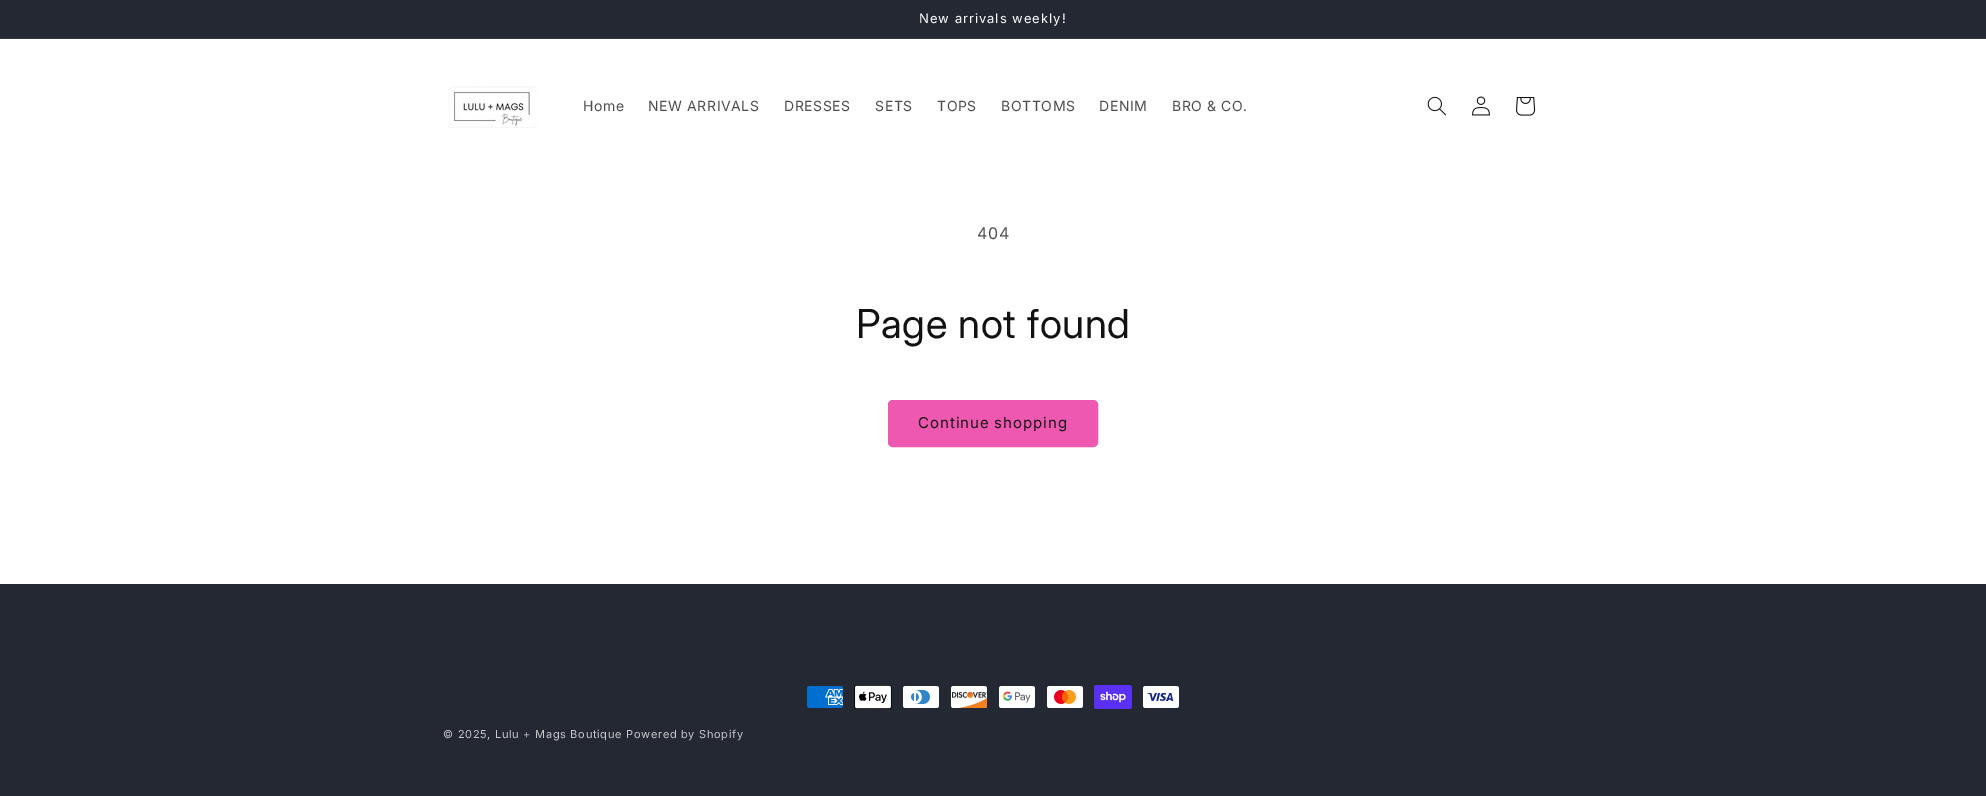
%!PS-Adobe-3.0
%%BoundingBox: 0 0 1986 796
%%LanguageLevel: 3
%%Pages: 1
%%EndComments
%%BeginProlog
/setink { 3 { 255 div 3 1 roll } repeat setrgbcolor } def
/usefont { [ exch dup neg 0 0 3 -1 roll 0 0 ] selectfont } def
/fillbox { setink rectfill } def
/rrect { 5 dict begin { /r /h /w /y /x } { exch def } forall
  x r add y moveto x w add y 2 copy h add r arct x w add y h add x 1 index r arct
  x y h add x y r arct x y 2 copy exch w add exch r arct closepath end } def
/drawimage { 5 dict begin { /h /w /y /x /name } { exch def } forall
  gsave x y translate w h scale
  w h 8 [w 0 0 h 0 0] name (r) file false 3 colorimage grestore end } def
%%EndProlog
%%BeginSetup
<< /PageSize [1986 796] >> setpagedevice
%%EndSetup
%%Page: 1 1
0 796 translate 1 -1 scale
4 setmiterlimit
0 0 1986 796 255 255 255 fillbox
0 0 1986 38 36 40 51 fillbox
0 38 1986 1 54 57 67 fillbox
/Inter-Regular 13 usefont
255 255 255 setink
919 23 moveto 1 0 (New arrivals weekly!) ashow
(assets/img1.rgb) 448 86 89 42 drawimage
/Inter-Regular 14 usefont
77 77 77 setink
583 111 moveto 0.6 0 (Home) ashow
648 111 moveto 0.6 0 (NEW ARRIVALS) ashow
784 111 moveto 0.6 0 (DRESSES) ashow
875 111 moveto 0.6 0 (SETS) ashow
937 111 moveto 0.6 0 (TOPS) ashow
1001 111 moveto 0.6 0 (BOTTOMS) ashow
1099 111 moveto 0.6 0 (DENIM) ashow
1172 111 moveto 0.6 0 (BRO & CO.) ashow
(assets/img2.rgb) 1427 96 19 20 drawimage
(assets/img3.rgb) 1472 96 18 20 drawimage
(assets/img4.rgb) 1516 97 20 19 drawimage
/Inter-Regular 16 usefont
977 239 moveto 0.6 0 (404) ashow
/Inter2-Regular 40 usefont
18 18 18 setink
856 338 moveto 0.6 0 (Page not found) ashow
239 88 176 setink
888 400 210 47 5 rrect fill
888.5 400.5 209 46 4.5 rrect stroke
/Inter-Regular 15 usefont
18 18 18 setink
918 428 moveto -1 0 32 1 0 (Continue shopping) awidthshow
0 584 1986 212 36 40 51 fillbox
(assets/img5.rgb) 807 686 36 22 drawimage
(assets/img6.rgb) 854 685 38 24 drawimage
(assets/img7.rgb) 903 686 36 22 drawimage
(assets/img8.rgb) 951 686 36 22 drawimage
(assets/img9.rgb) 999 686 36 22 drawimage
(assets/img10.rgb) 1047 686 36 22 drawimage
(assets/img11.rgb) 1094 685 38 24 drawimage
(assets/img12.rgb) 1143 686 36 22 drawimage
/Inter-Regular 11 usefont
200 201 204 setink
443 738 moveto 0.7 0 (© 2025, Lulu + Mags Boutique Powered by Shopify) ashow
showpage
%%EOF
